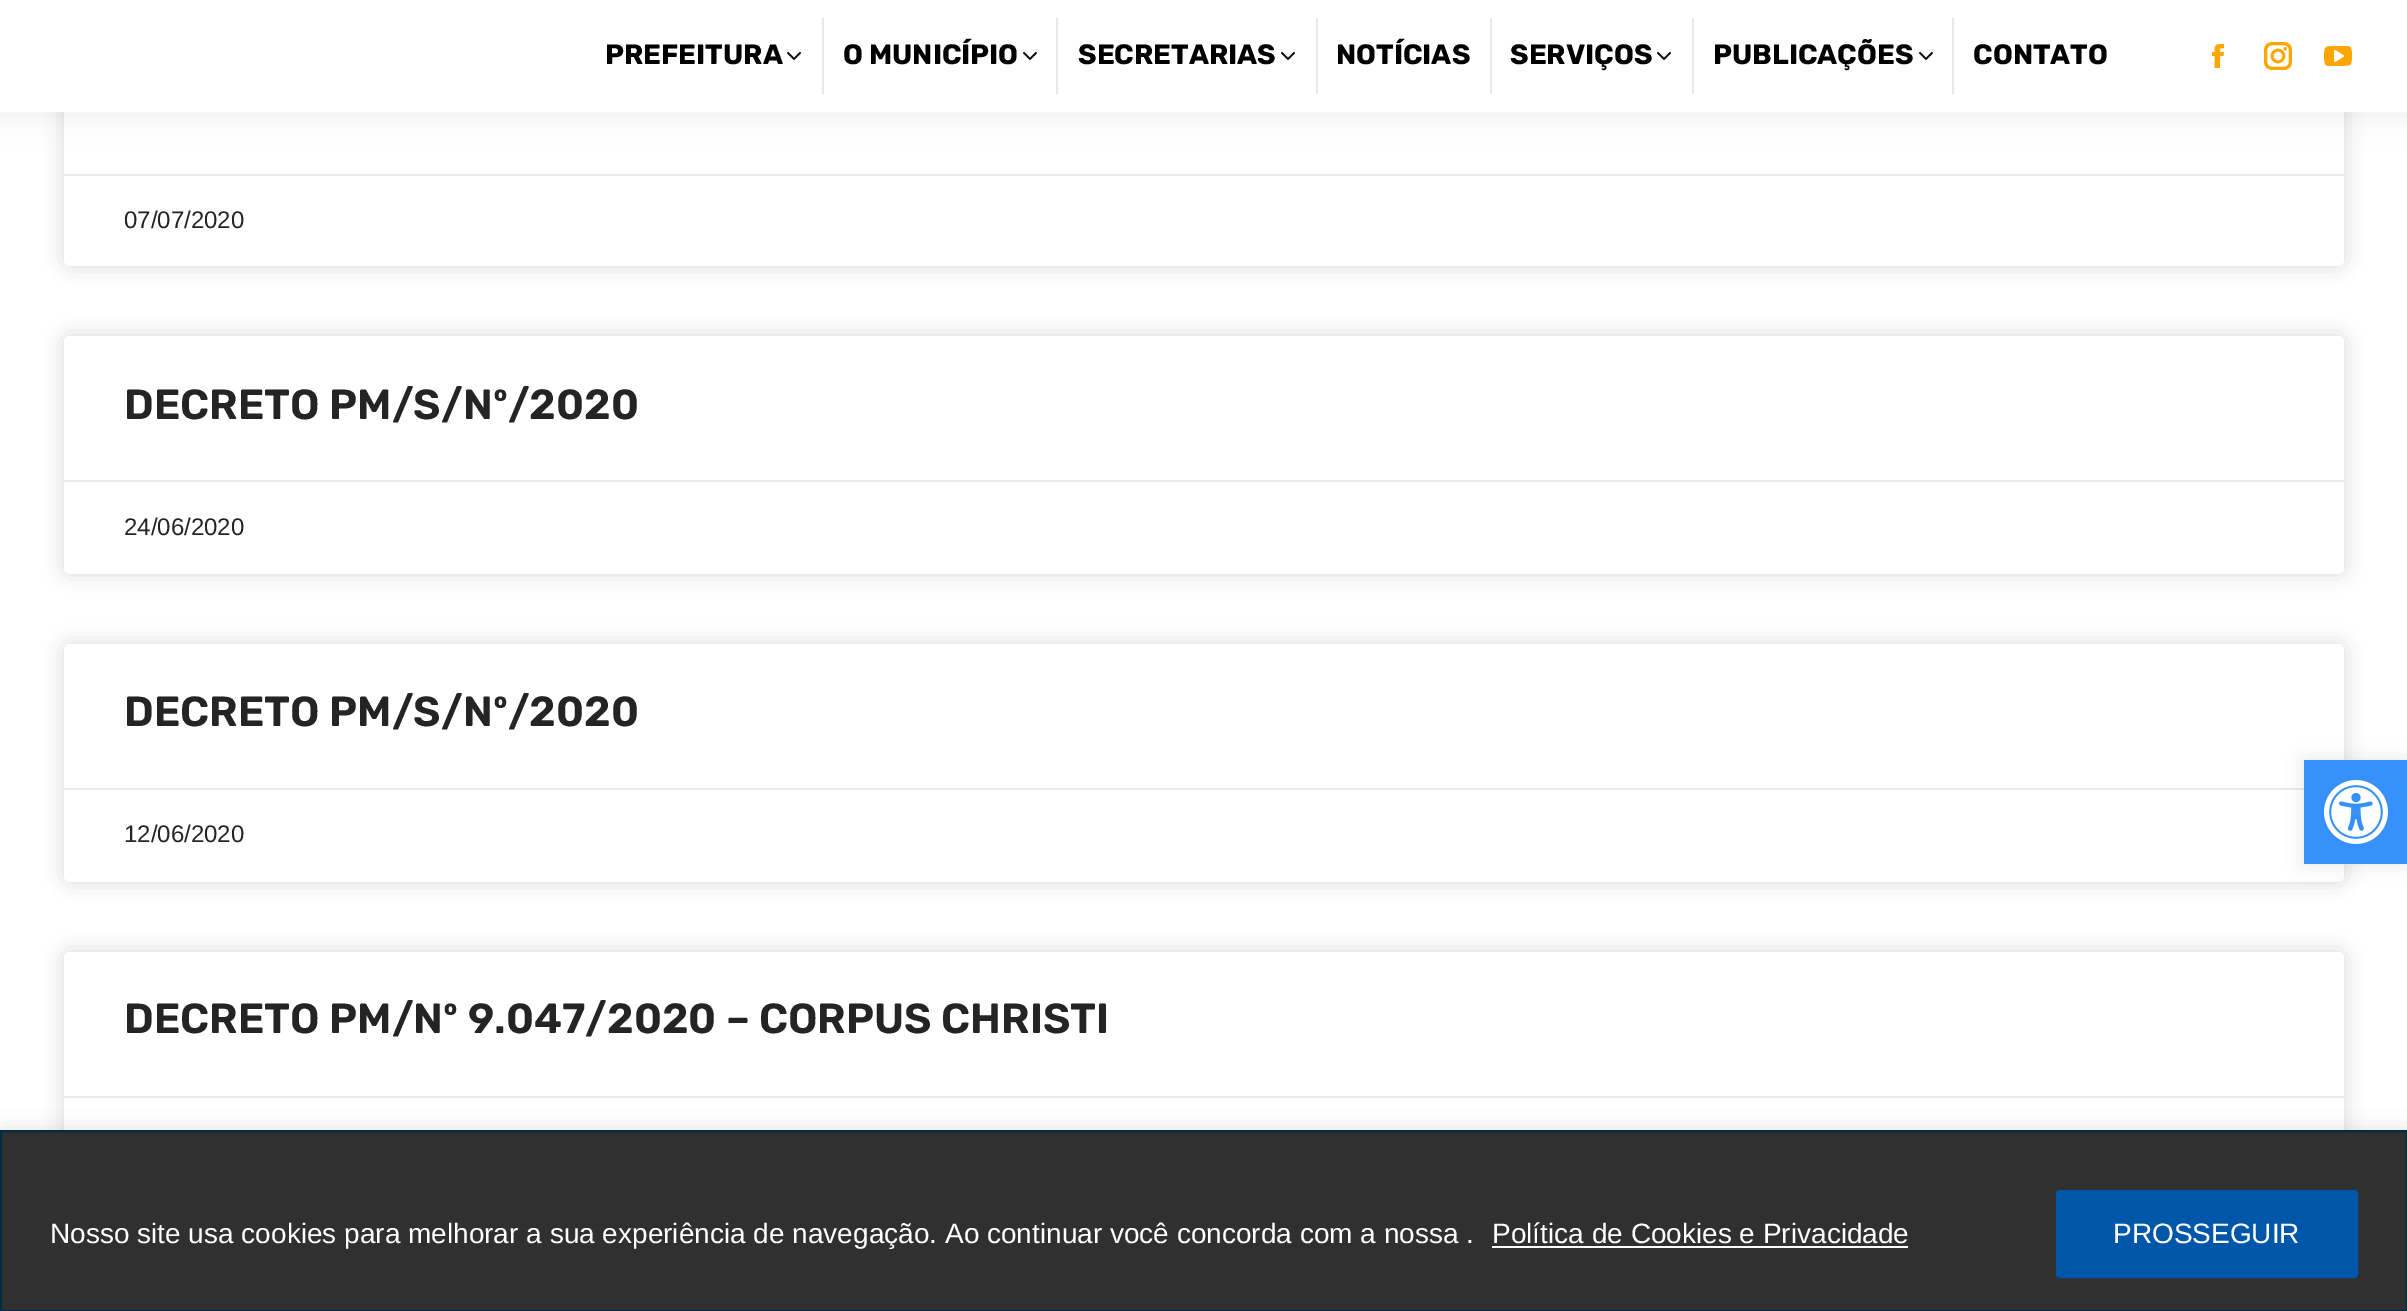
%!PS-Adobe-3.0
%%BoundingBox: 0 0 2407 1311
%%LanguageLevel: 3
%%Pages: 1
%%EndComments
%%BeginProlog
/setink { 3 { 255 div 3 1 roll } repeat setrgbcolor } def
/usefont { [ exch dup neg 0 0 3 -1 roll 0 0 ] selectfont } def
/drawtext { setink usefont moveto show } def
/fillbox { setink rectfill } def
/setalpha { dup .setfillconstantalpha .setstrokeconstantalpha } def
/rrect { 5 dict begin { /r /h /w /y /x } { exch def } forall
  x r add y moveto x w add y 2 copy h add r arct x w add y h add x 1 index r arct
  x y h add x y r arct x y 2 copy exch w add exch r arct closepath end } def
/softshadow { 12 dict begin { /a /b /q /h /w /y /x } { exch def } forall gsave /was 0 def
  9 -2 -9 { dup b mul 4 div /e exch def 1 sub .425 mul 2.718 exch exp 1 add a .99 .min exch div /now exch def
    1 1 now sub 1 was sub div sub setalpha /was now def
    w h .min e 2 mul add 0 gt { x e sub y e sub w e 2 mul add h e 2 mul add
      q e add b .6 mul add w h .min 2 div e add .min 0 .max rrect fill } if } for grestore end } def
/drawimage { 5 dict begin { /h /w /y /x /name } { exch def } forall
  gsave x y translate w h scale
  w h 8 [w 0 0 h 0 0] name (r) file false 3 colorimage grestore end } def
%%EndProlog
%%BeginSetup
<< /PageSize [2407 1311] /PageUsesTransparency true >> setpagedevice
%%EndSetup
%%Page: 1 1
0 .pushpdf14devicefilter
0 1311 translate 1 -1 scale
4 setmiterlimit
0 0 2407 1311 255 255 255 fillbox
0 0 0 setink
64 30 2280 236 6 10 0.15 softshadow
255 255 255 setink
64 30 2280 236 6 rrect fill
0 0 0 setink
-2 -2 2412 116 0 15 0.07 softshadow
0 0 2407 112 255 255 255 fillbox
(PREFEITURA) 605 64 /Rubik-Bold 28 0 0 0 drawtext
(assets/img1.rgb) 787 52 14 8 drawimage
822 18 2 76 232 232 232 fillbox
(O MUNICÍPIO) 843 64 /Rubik-Bold 28 0 0 0 drawtext
(assets/img1.rgb) 1023 52 14 8 drawimage
1056 18 2 76 232 232 232 fillbox
(SECRETARIAS) 1078 64 /Rubik-Bold 28 0 0 0 drawtext
(assets/img1.rgb) 1281 52 14 8 drawimage
1316 18 2 76 232 232 232 fillbox
(NOTÍCIAS) 1336 64 /Rubik-Bold 28 0 0 0 drawtext
1490 18 2 76 232 232 232 fillbox
(SERVIÇOS) 1510 64 /Rubik-Bold 28 0 0 0 drawtext
(assets/img1.rgb) 1657 52 14 8 drawimage
1692 18 2 76 232 232 232 fillbox
(PUBLICAÇÕES) 1713 64 /Rubik-Bold 28 0 0 0 drawtext
(assets/img1.rgb) 1919 52 14 8 drawimage
1952 18 2 76 232 232 232 fillbox
(CONTATO) 1973 64 /Rubik-Bold 28 0 0 0 drawtext
(assets/img2.rgb) 2211 44 14 24 drawimage
(assets/img3.rgb) 2264 42 28 28 drawimage
(assets/img4.rgb) 2324 46 28 20 drawimage
64 174 2280 2 234 234 234 fillbox
(07/07/2020) 124 228 /LiberationSans-Regular 24 36 36 36 drawtext
0 0 0 setink
64 336 2280 238 6 10 0.15 softshadow
255 255 255 setink
64 336 2280 238 6 rrect fill
(DECRETO PM/S/Nº/2020) 124 419 /Rubik-SemiBold 42 36 36 36 drawtext
64 480 2280 2 234 234 234 fillbox
(24/06/2020) 124 535 /LiberationSans-Regular 24 36 36 36 drawtext
0 0 0 setink
64 644 2280 238 6 10 0.15 softshadow
255 255 255 setink
64 644 2280 238 6 rrect fill
(DECRETO PM/S/Nº/2020) 124 726 /Rubik-SemiBold 42 36 36 36 drawtext
64 788 2240 2 234 234 234 fillbox
(12/06/2020) 124 842 /LiberationSans-Regular 24 36 36 36 drawtext
0 0 0 setink
64 952 2280 236 6 10 0.15 softshadow
255 255 255 setink
64 952 2280 236 6 rrect fill
(DECRETO PM/Nº 9.047/2020 – CORPUS CHRISTI) 124 1033 /Rubik-SemiBold 42 36 36 36 drawtext
64 1096 2280 2 234 234 234 fillbox
0 0 0 setink
2304 760 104 104 0 10 0.1 softshadow
2304 760 103 104 54 144 250 fillbox
(assets/img5.rgb) 2324 780 64 64 drawimage
172 171 171 setink
0 1128 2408 182 0 10 0.3 softshadow
48 48 48 setink
1 1131 moveto 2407 1131 lineto 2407 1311 lineto 1 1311 lineto closepath gsave fill grestore
0 44 66 setink
2 setlinewidth
stroke
(Nosso site usa cookies para melhorar a sua experiência de navegação. Ao continuar você concorda com a nossa .) 50 1243 /LiberationSans-Regular 28 255 255 255 drawtext
(Política de Cookies e Privacidade) 1492 1243 /LiberationSans-Regular 28 255 255 255 drawtext
1492 1246 416 2 255 255 255 fillbox
0 87 170 setink
2058 1192 298 84 2 rrect gsave fill grestore
4 setlinewidth
stroke
(PROSSEGUIR) 2113 1243 /LiberationSans-Regular 28 255 255 255 drawtext
.poppdf14devicefilter showpage
%%EOF
